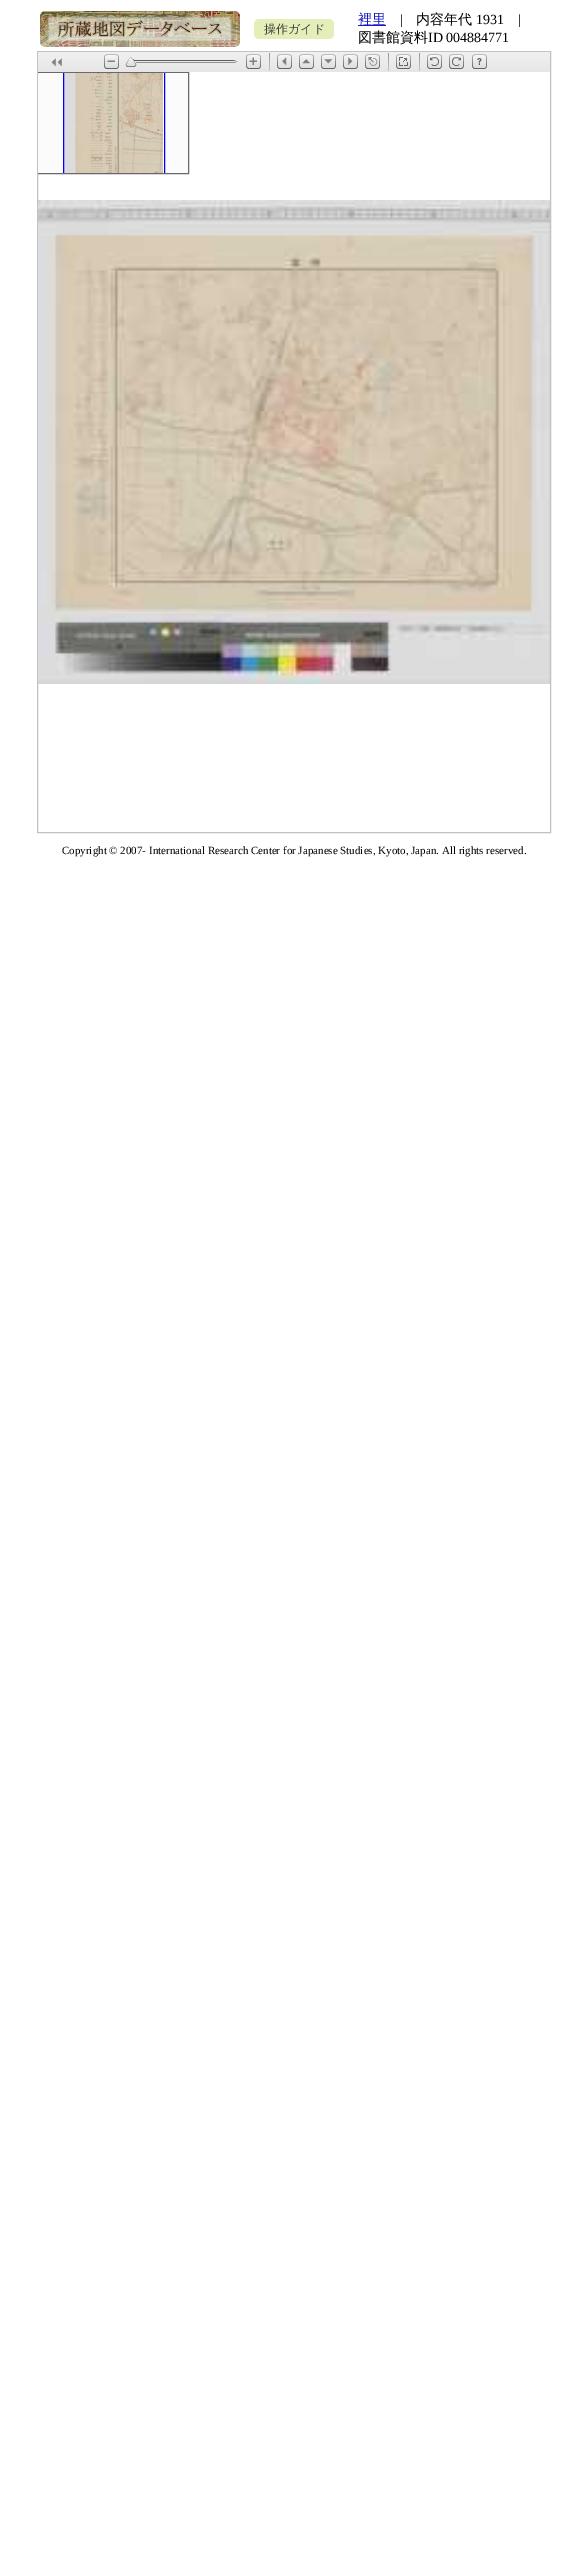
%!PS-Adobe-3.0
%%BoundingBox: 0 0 588 2558
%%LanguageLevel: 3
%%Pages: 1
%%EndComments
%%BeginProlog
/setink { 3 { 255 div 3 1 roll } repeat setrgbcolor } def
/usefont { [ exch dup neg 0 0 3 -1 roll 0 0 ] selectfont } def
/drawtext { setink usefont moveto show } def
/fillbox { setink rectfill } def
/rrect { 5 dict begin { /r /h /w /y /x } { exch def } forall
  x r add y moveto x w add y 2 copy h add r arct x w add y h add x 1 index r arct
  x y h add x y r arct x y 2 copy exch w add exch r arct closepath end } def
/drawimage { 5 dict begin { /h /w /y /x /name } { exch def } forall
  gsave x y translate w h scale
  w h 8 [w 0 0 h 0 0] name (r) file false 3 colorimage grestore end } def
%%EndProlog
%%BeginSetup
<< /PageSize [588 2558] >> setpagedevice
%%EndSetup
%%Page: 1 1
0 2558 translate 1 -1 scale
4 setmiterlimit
0 0 588 2558 255 255 255 fillbox
(assets/img1.rgb) 40 11 200 36 drawimage
228 238 185 setink
254 19 80 20 5 rrect fill
(操作ガイド) 264 33 /WenQuanYiZenHei-Medium 12 64 64 64 drawtext
358 25 28 1 22 25 196 fillbox
(裡里) 358 24 /WenQuanYiZenHei-Medium 14 22 25 196 drawtext
(|) 400 24 /LiberationSerif-Regular 14 0 0 0 drawtext
(内容年代) 416 24 /WenQuanYiZenHei-Medium 14 0 0 0 drawtext
(1931 |) 476 24 /LiberationSerif-Regular 14 0 0 0 drawtext
(図書館資料) 358 42 /WenQuanYiZenHei-Medium 14 0 0 0 drawtext
(ID 004884771) 428 42 /LiberationSerif-Regular 14 0 0 0 drawtext
194 194 194 setink
37.5 51.5 513 781 rectstroke
gsave
38 52 512 780 rectclip
105 105 105 setink
37.5 72.5 151 101 rectstroke
grestore
38 73 150 100 252 251 251 fillbox
(assets/img2.rgb) 64 73 99 100 drawimage
(assets/img3.rgb) 38 52 512 20 drawimage
(assets/img5.rgb) 104 54 15 15 drawimage
(assets/img18.rgb) 126 60 112 3 drawimage
(assets/img6.rgb) 125 57 12 10 drawimage
(assets/img19.rgb) 38 200 512 484 drawimage
gsave
38 73 150 100 rectclip
0 0 255 setink
63.5 41.5 101 162 rectstroke
grestore
(assets/img4.rgb) 51 58 11 8 drawimage
(assets/img7.rgb) 246 54 15 15 drawimage
(assets/img8.rgb) 269 53 1 18 drawimage
(assets/img9.rgb) 277 54 15 15 drawimage
(assets/img10.rgb) 299 54 15 15 drawimage
(assets/img11.rgb) 321 54 15 15 drawimage
(assets/img12.rgb) 343 54 15 15 drawimage
(assets/img13.rgb) 365 54 15 15 drawimage
(assets/img8.rgb) 388 53 1 18 drawimage
(assets/img14.rgb) 396 54 15 15 drawimage
(assets/img8.rgb) 419 53 1 18 drawimage
(assets/img15.rgb) 427 54 15 15 drawimage
(assets/img16.rgb) 449 54 15 15 drawimage
(assets/img17.rgb) 472 54 15 15 drawimage
(Copyright © 2007- International Research Center for Japanese Studies, Kyoto, Japan. All rights reserved.) 62 854 /LiberationSerif-Regular 11 0 0 0 drawtext
showpage
%%EOF
